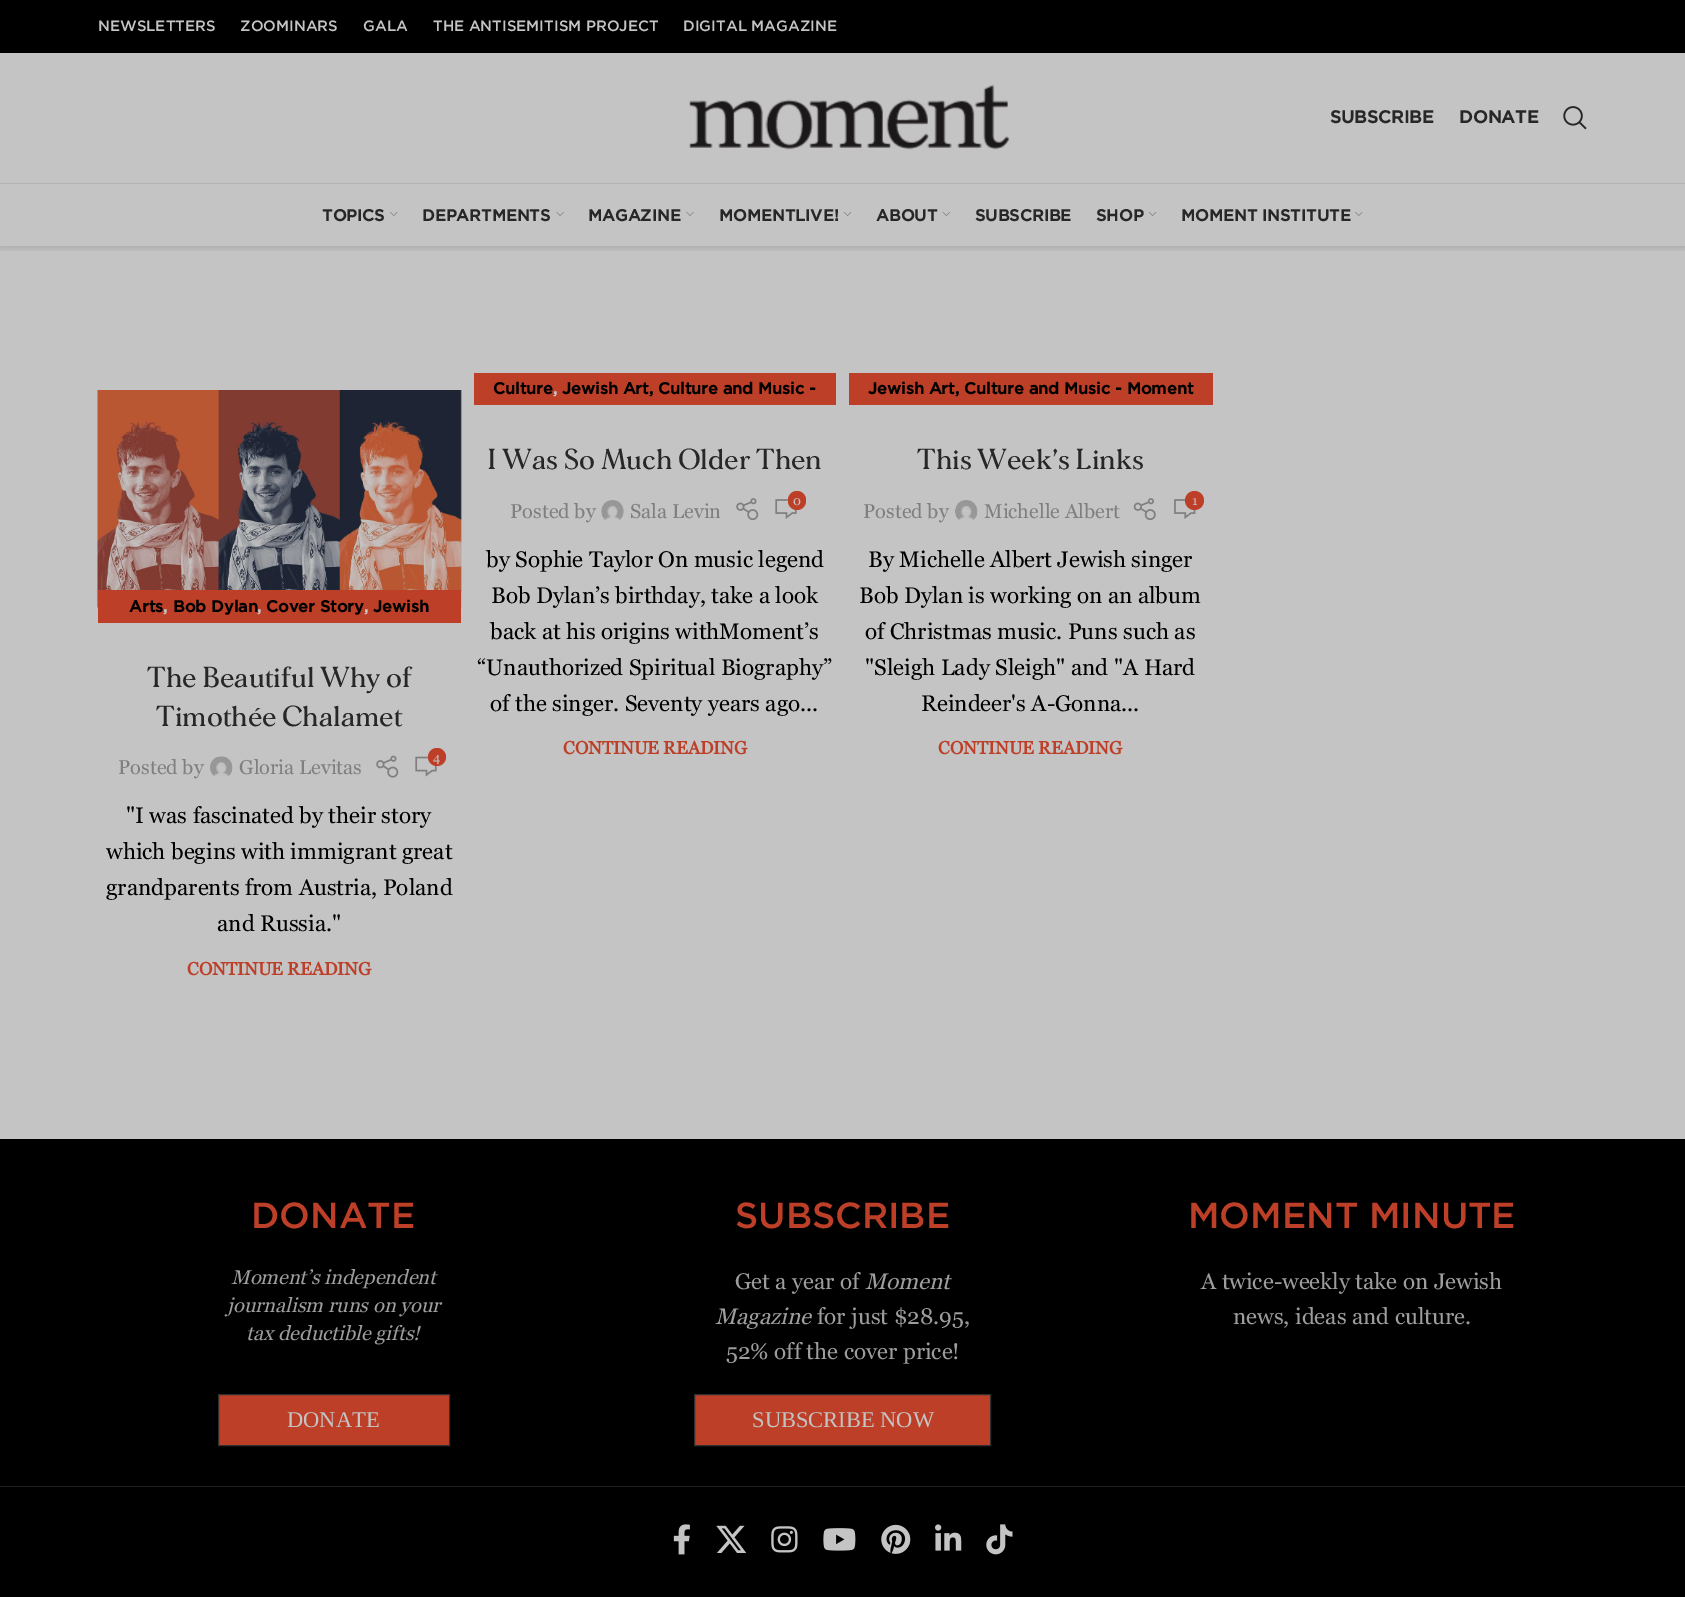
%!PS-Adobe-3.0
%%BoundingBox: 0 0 1685 1597
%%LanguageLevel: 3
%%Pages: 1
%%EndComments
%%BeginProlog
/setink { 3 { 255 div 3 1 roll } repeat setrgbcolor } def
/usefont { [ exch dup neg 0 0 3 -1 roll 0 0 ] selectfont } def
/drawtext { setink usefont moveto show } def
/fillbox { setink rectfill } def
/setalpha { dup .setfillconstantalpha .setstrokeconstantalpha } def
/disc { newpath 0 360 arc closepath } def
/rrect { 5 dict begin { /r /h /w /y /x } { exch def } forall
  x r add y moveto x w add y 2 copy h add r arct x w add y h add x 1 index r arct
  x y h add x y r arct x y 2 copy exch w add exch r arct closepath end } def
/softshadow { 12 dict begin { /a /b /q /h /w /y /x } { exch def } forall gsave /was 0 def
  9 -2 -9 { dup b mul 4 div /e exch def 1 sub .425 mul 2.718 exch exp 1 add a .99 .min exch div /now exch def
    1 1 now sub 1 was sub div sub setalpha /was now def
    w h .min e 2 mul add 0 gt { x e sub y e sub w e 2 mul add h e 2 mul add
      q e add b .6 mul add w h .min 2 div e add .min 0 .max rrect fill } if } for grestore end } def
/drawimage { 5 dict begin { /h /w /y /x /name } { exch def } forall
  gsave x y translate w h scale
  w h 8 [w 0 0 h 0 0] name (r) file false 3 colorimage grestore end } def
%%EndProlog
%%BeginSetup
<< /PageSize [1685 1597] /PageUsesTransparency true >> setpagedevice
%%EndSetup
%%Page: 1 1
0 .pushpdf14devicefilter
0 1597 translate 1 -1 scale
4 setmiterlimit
0 0 1685 1597 196 196 196 fillbox
0 0 1685 53 0 0 0 fillbox
(NEWSLETTERS) 98 31 /Gotham-Medium 15 196 196 196 drawtext
(ZOOMINARS) 240 31 /Gotham-Medium 15 196 196 196 drawtext
(GALA) 363 31 /Gotham-Medium 15 196 196 196 drawtext
(THE ANTISEMITISM PROJECT) 433 31 /Gotham-Medium 15 196 196 196 drawtext
(DIGITAL MAGAZINE) 683 31 /Gotham-Medium 15 196 196 196 drawtext
(assets/img1.rgb) 689 84 321 66 drawimage
(SUBSCRIBE) 1330 123 /Gotham-Bold 17.5 39 39 39 drawtext
(DONATE) 1459 123 /Gotham-Bold 17.5 39 39 39 drawtext
(assets/img2.rgb) 1563 106 24 24 drawimage
gsave
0 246 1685 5 rectclip
0 0 0 setink
0 185 1685 64 0 2.5 0.1 softshadow
grestore
0 183 1685 1 179 179 179 fillbox
(TOPICS) 322 221 /Gotham-Bold 16.25 39 39 39 drawtext
(assets/img3.rgb) 390 212 8 4 drawimage
(DEPARTMENTS) 422 221 /Gotham-Bold 16.25 39 39 39 drawtext
(assets/img4.rgb) 556 212 8 4 drawimage
(MAGAZINE) 588 221 /Gotham-Bold 16.25 39 39 39 drawtext
(assets/img4.rgb) 686 212 8 4 drawimage
(MOMENTLIVE!) 719 221 /Gotham-Bold 16.25 39 39 39 drawtext
(assets/img5.rgb) 843 212 9 4 drawimage
(ABOUT) 876 221 /Gotham-Bold 16.25 39 39 39 drawtext
(assets/img6.rgb) 942 212 8 4 drawimage
(SUBSCRIBE) 975 221 /Gotham-Bold 16.25 39 39 39 drawtext
(SHOP) 1096 221 /Gotham-Bold 16.25 39 39 39 drawtext
(assets/img5.rgb) 1148 212 9 4 drawimage
(MOMENT INSTITUTE) 1181 221 /Gotham-Bold 16.25 39 39 39 drawtext
(assets/img3.rgb) 1355 212 8 4 drawimage
(assets/img7.rgb) 97 390 365 218 drawimage
98 590 363 33 190 63 39 fillbox
(Arts) 129 612 /Gotham-Bold 16.25 0 0 0 drawtext
(,) 163 612 /Gotham-Bold 16 196 196 196 drawtext
(Bob Dylan) 173 612 /Gotham-Bold 16.25 0 0 0 drawtext
(,) 257 612 /Gotham-Bold 16 196 196 196 drawtext
(Cover Story) 266 612 /Gotham-Bold 16.25 0 0 0 drawtext
(,) 364 612 /Gotham-Bold 16 196 196 196 drawtext
(Jewish) 373 612 /Gotham-Bold 16.25 0 0 0 drawtext
(The Beautiful Why of) 147 687 /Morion-SemiBold 27.5 39 39 39 drawtext
(Timothée Chalamet) 156 726 /Morion-SemiBold 27.5 39 39 39 drawtext
(Posted by) 118 774 /Georgia-Regular 20 127 127 127 drawtext
(assets/img8.rgb) 210 756 23 21 drawimage
(Gloria Levitas) 239 774 /Georgia-Regular 20 127 127 127 drawtext
(assets/img9.rgb) 376 755 23 23 drawimage
(assets/img10.rgb) 415 756 22 21 drawimage
190 63 39 setink
437 757 9 disc fill
(4) 433 762 /Georgia-Regular 13 196 196 196 drawtext
("I was fascinated by their story) 126 823 /Georgia-Regular 22.5 0 0 0 drawtext
(which begins with immigrant great) 106 859 /Georgia-Regular 22.5 0 0 0 drawtext
(grandparents from Austria, Poland) 106 895 /Georgia-Regular 22.5 0 0 0 drawtext
(and Russia.") 217 931 /Georgia-Regular 22.5 0 0 0 drawtext
(CONTINUE READING) 187 975 /Georgia-Bold 18 190 63 39 drawtext
474 373 362 32 190 63 39 fillbox
(Culture) 493 394 /Gotham-Bold 16.25 0 0 0 drawtext
(,) 553 394 /Gotham-Bold 16 196 196 196 drawtext
(Jewish Art, Culture and Music -) 562 394 /Gotham-Bold 16.25 0 0 0 drawtext
(I Was So Much Older Then) 487 469 /Morion-SemiBold 27.5 39 39 39 drawtext
(Posted by) 510 518 /Georgia-Regular 20 127 127 127 drawtext
(assets/img11.rgb) 601 500 23 21 drawimage
(Sala Levin) 630 518 /Georgia-Regular 20 127 127 127 drawtext
(assets/img12.rgb) 736 498 23 23 drawimage
(assets/img13.rgb) 775 499 22 20 drawimage
190 63 39 setink
788 491 18 19 9 rrect fill
(0) 793 505 /Georgia-Regular 13 196 196 196 drawtext
(by Sophie Taylor On music legend) 486 567 /Georgia-Regular 22.5 0 0 0 drawtext
(Bob Dylan’s birthday, take a look) 491 603 /Georgia-Regular 22.5 0 0 0 drawtext
(back at his origins withMoment’s) 490 639 /Georgia-Regular 22.5 0 0 0 drawtext
(“Unauthorized Spiritual Biography”) 477 675 /Georgia-Regular 22.5 0 0 0 drawtext
(of the singer. Seventy years ago...) 490 711 /Georgia-Regular 22.5 0 0 0 drawtext
(CONTINUE READING) 563 754 /Georgia-Bold 18 190 63 39 drawtext
849 373 364 32 190 63 39 fillbox
(Jewish Art, Culture and Music - Moment) 868 394 /Gotham-Bold 16.25 0 0 0 drawtext
(This Week's Links) 917 469 /Morion-SemiBold 27.5 39 39 39 drawtext
(Posted by) 863 518 /Georgia-Regular 20 127 127 127 drawtext
(assets/img14.rgb) 955 500 23 21 drawimage
(Michelle Albert) 984 518 /Georgia-Regular 20 127 127 127 drawtext
(assets/img15.rgb) 1133 498 23 23 drawimage
(assets/img16.rgb) 1174 499 22 20 drawimage
190 63 39 setink
1194.5 500.5 9.5 disc fill
(1) 1192 505 /Georgia-Regular 13 196 196 196 drawtext
(By Michelle Albert Jewish singer) 868 567 /Georgia-Regular 22.5 0 0 0 drawtext
(Bob Dylan is working on an album) 859 603 /Georgia-Regular 22.5 0 0 0 drawtext
(of Christmas music. Puns such as) 865 639 /Georgia-Regular 22.5 0 0 0 drawtext
("Sleigh Lady Sleigh" and "A Hard) 865 675 /Georgia-Regular 22.5 0 0 0 drawtext
(Reindeer's A-Gonna...) 921 711 /Georgia-Regular 22.5 0 0 0 drawtext
(CONTINUE READING) 938 754 /Georgia-Bold 18 190 63 39 drawtext
0 1139 1685 458 0 0 0 fillbox
(DONATE) 251 1228 /Gotham-Medium 36.25 190 63 39 drawtext
(Moment’s independent) 231 1284 /Georgia-Italic 20 157 157 157 drawtext
(journalism runs on your) 227 1312 /Georgia-Italic 20 157 157 157 drawtext
(tax deductible gifts!) 246 1340 /Georgia-Italic 20 157 157 157 drawtext
190 63 39 setink
218.5 1394.5 moveto 449.5 1394.5 lineto 449.5 1445.5 lineto 218.5 1445.5 lineto closepath gsave fill grestore
47 47 47 setink
stroke
(DONATE) 287 1427 /LiberationSerif-Regular 22.5 196 196 196 drawtext
(SUBSCRIBE) 735 1228 /Gotham-Medium 36.25 190 63 39 drawtext
(Get a year of) 735 1289 /Georgia-Regular 22.5 157 157 157 drawtext
(Moment) 865 1289 /Georgia-Italic 22.5 157 157 157 drawtext
(Magazine) 715 1324 /Georgia-Italic 22.5 157 157 157 drawtext
(for just $28.95,) 817 1324 /Georgia-Regular 22.5 157 157 157 drawtext
(52% off the cover price!) 726 1359 /Georgia-Regular 22.5 157 157 157 drawtext
190 63 39 setink
694.5 1394.5 moveto 990.5 1394.5 lineto 990.5 1445.5 lineto 694.5 1445.5 lineto closepath gsave fill grestore
47 47 47 setink
stroke
(SUBSCRIBE NOW) 752 1427 /LiberationSerif-Regular 22.5 196 196 196 drawtext
(MOMENT MINUTE) 1188 1228 /Gotham-Medium 36.25 190 63 39 drawtext
(A twice-weekly take on Jewish) 1201 1289 /Georgia-Regular 22.5 157 157 157 drawtext
(news, ideas and culture.) 1233 1324 /Georgia-Regular 22.5 157 157 157 drawtext
0 1486 1685 1 29 29 29 fillbox
(assets/img17.rgb) 673 1524 17 31 drawimage
(assets/img18.rgb) 716 1525 31 28 drawimage
(assets/img19.rgb) 771 1526 27 27 drawimage
(assets/img20.rgb) 823 1528 33 23 drawimage
(assets/img21.rgb) 881 1524 30 30 drawimage
(assets/img22.rgb) 935 1524 27 27 drawimage
(assets/img23.rgb) 986 1524 27 31 drawimage
.poppdf14devicefilter showpage
%%EOF
